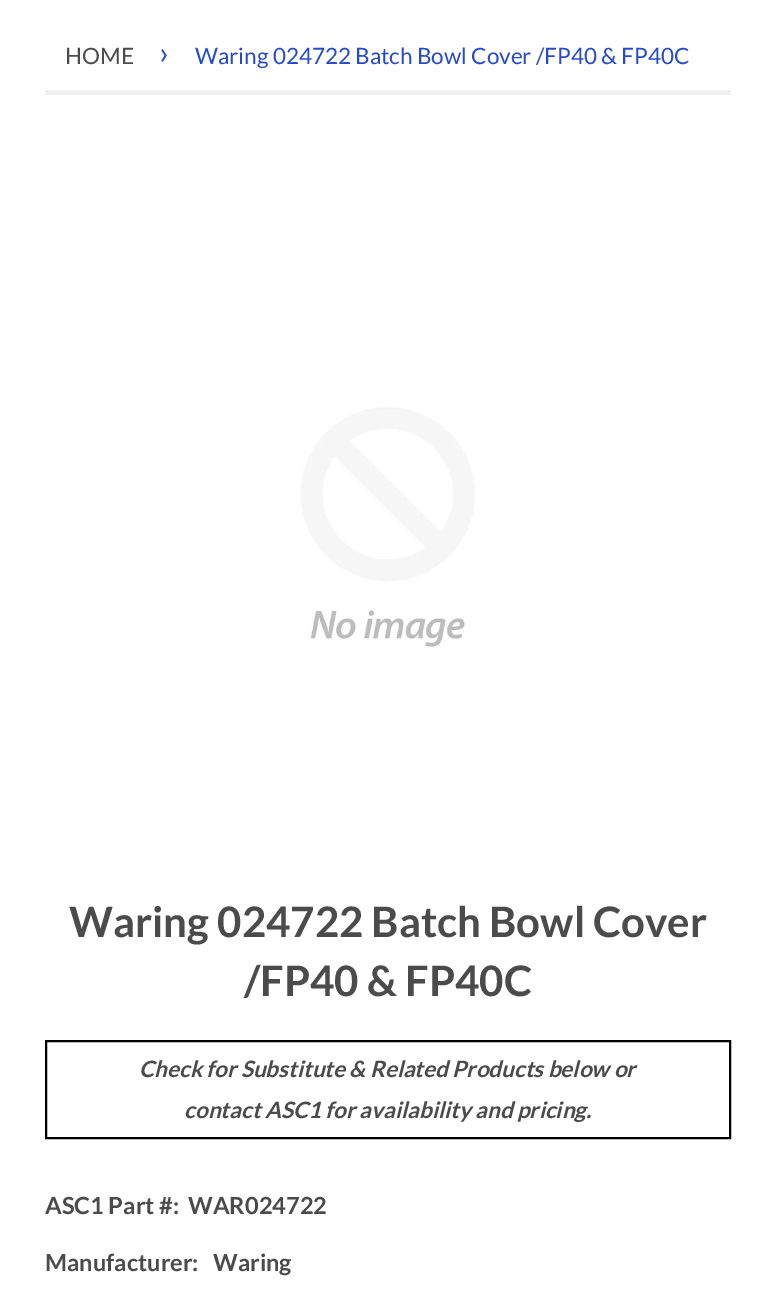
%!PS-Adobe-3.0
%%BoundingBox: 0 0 775 1312
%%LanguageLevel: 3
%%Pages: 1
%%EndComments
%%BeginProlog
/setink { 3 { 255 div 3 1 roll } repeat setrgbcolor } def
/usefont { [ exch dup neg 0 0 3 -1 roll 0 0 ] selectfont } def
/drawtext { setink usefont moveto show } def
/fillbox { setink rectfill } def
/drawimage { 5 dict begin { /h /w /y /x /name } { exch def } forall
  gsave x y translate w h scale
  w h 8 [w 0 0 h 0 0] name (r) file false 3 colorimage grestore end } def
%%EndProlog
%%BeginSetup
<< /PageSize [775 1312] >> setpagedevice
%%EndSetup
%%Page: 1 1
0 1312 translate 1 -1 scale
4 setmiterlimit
0 0 775 1312 255 255 255 fillbox
45 90 686 5 240 240 240 fillbox
(HOME) 65 64 /Lato-Regular 22.5 75 75 75 drawtext
(›) 159 64 /Lato-Regular 32 38 74 200 drawtext
(Waring 024722 Batch Bowl Cover /FP40 & FP40C) 195 64 /Lato-Regular 22.5 38 74 200 drawtext
(assets/img1.rgb) 300 407 175 240 drawimage
(Waring 024722 Batch Bowl Cover) 69 937 /Lato-Bold 42 75 75 75 drawtext
(/FP40 & FP40C) 244 996 /Lato-Bold 42 75 75 75 drawtext
0 0 0 setink
2 setlinewidth
46 1041 684 97 rectstroke
(Check for Substitute & Related Products below or) 139 1077 /Lato-BoldItalic 22.5 75 75 75 drawtext
(contact ASC1 for availability and pricing.) 184 1118 /Lato-BoldItalic 22.5 75 75 75 drawtext
(ASC1 Part #:  WAR024722) 45 1214 /Lato-Bold 23.6 75 75 75 drawtext
(Manufacturer:) 45 1271 /Lato-Bold 23.6 75 75 75 drawtext
(Waring) 213 1271 /Lato-Bold 23.6 75 75 75 drawtext
showpage
%%EOF
